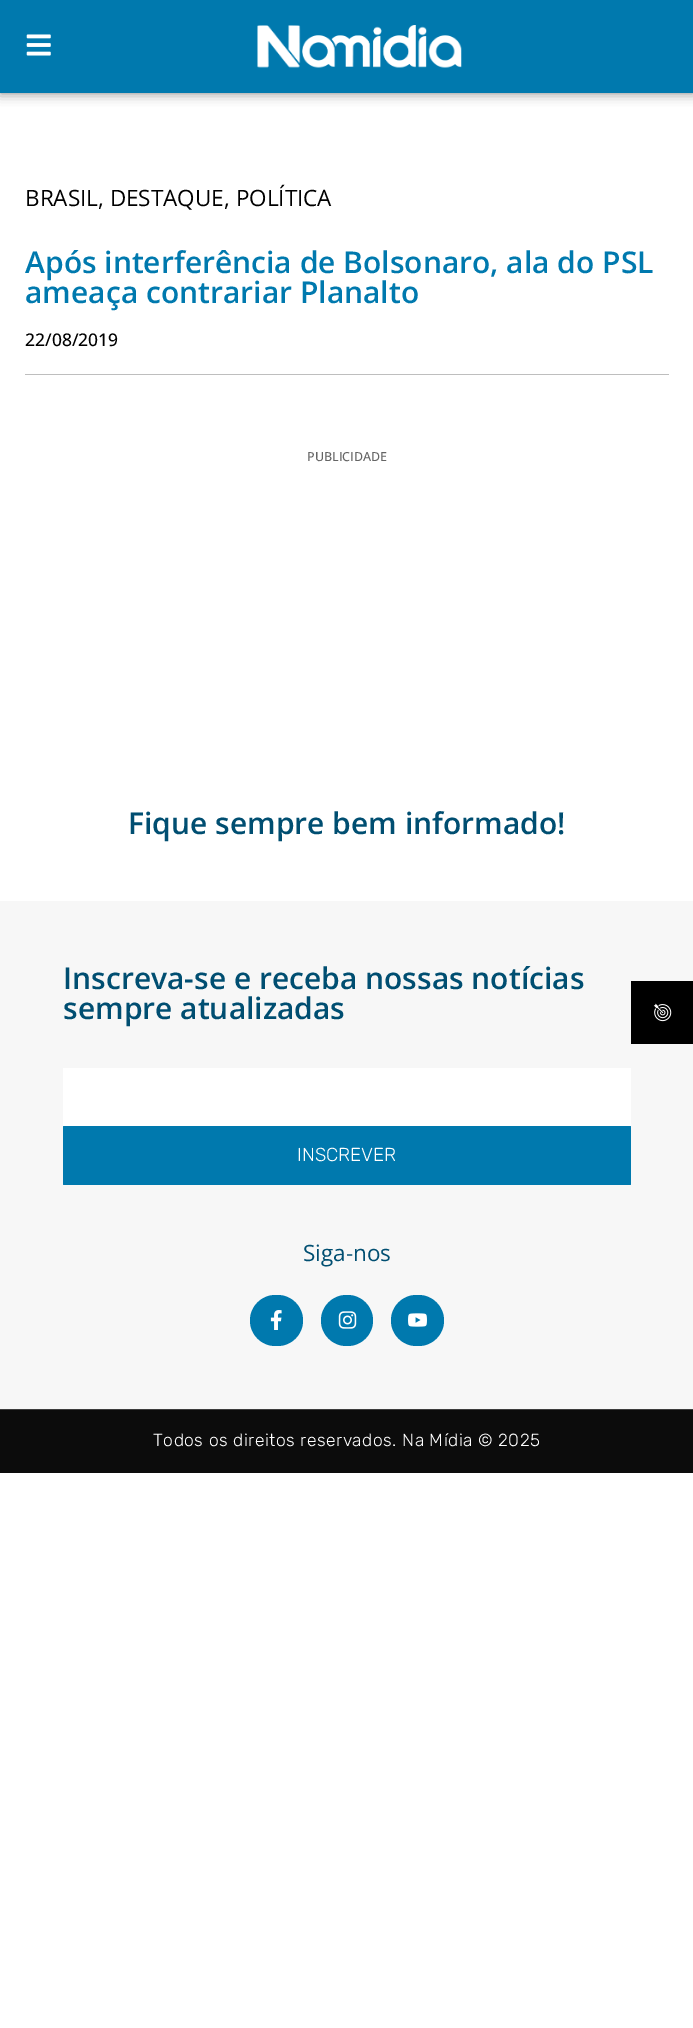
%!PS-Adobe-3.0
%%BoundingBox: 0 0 693 2028
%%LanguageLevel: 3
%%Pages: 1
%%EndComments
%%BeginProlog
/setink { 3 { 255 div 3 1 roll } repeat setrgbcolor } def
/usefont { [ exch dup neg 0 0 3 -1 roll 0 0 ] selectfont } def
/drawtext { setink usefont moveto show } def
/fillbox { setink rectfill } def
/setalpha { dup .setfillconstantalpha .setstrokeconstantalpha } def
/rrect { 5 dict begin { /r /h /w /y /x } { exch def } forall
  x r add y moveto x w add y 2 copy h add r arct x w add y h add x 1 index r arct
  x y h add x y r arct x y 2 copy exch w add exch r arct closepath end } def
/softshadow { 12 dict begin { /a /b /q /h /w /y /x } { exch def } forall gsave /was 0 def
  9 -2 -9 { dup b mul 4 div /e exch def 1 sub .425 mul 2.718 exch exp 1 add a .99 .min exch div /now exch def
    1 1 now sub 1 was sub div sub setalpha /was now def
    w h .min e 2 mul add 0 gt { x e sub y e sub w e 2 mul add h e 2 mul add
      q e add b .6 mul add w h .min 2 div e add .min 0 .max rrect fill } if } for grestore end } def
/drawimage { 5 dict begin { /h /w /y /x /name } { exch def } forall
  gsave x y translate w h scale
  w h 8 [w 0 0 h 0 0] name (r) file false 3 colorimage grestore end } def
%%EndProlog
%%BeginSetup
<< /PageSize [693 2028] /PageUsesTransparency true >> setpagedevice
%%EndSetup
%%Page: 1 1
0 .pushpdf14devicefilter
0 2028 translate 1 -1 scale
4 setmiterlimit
0 0 693 2028 255 255 255 fillbox
0 0 0 setink
0 0 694 93 0 6 0.5 softshadow
0 0 693 93 0 121 174 fillbox
(assets/img1.rgb) 26 34 25 22 drawimage
(assets/img2.rgb) 257 25 205 43 drawimage
25 374 644 1 190 190 190 fillbox
(BRASIL, DESTAQUE, POLÍTICA) 25 206 /OpenSans-Regular 22.5 0 0 0 drawtext
(Após interferência de Bolsonaro, ala do PSL) 25 273 /OpenSans-SemiBold 30 0 121 174 drawtext
(ameaça contrariar Planalto) 25 303 /OpenSans-SemiBold 30 0 121 174 drawtext
(22/08/2019) 25 346 /OpenSans-Medium 17.5 0 0 0 drawtext
(PUBLICIDADE) 307 461 /OpenSans-Medium 12.5 101 101 101 drawtext
(Fique sempre bem informado!) 128 834 /OpenSans-SemiBold 30 0 78 113 drawtext
0 901 693 508 247 247 247 fillbox
(Inscreva-se e receba nossas notícias) 63 989 /OpenSans-SemiBold 30 0 78 113 drawtext
(sempre atualizadas) 63 1019 /OpenSans-SemiBold 30 0 78 113 drawtext
63 1068 568 58 255 255 255 fillbox
0 121 174 setink
63 1126 568 59 1 rrect fill
(INSCREVER) 297 1161 /Rubik-Light 18.75 255 255 255 drawtext
(Siga-nos) 303 1261 /OpenSans-Regular 22.5 0 78 113 drawtext
0 121 174 setink
250 1295 53 51 25.5 rrect fill
(assets/img3.rgb) 270 1310 12 20 drawimage
321 1295 52 51 25.5 rrect fill
(assets/img4.rgb) 338 1311 19 18 drawimage
391 1295 53 51 25.5 rrect fill
(assets/img5.rgb) 408 1313 19 14 drawimage
0 1410 693 63 12 12 12 fillbox
0 1409 693 1 61 61 61 fillbox
/Rubik-Light 17.5 usefont
255 255 255 setink
153 1446 moveto 0.5 0 (Todos os direitos reservados. Na Mídia © 2025) ashow
631 981 62 63 0 0 0 fillbox
(assets/img6.rgb) 653 1003 19 19 drawimage
.poppdf14devicefilter showpage
%%EOF
